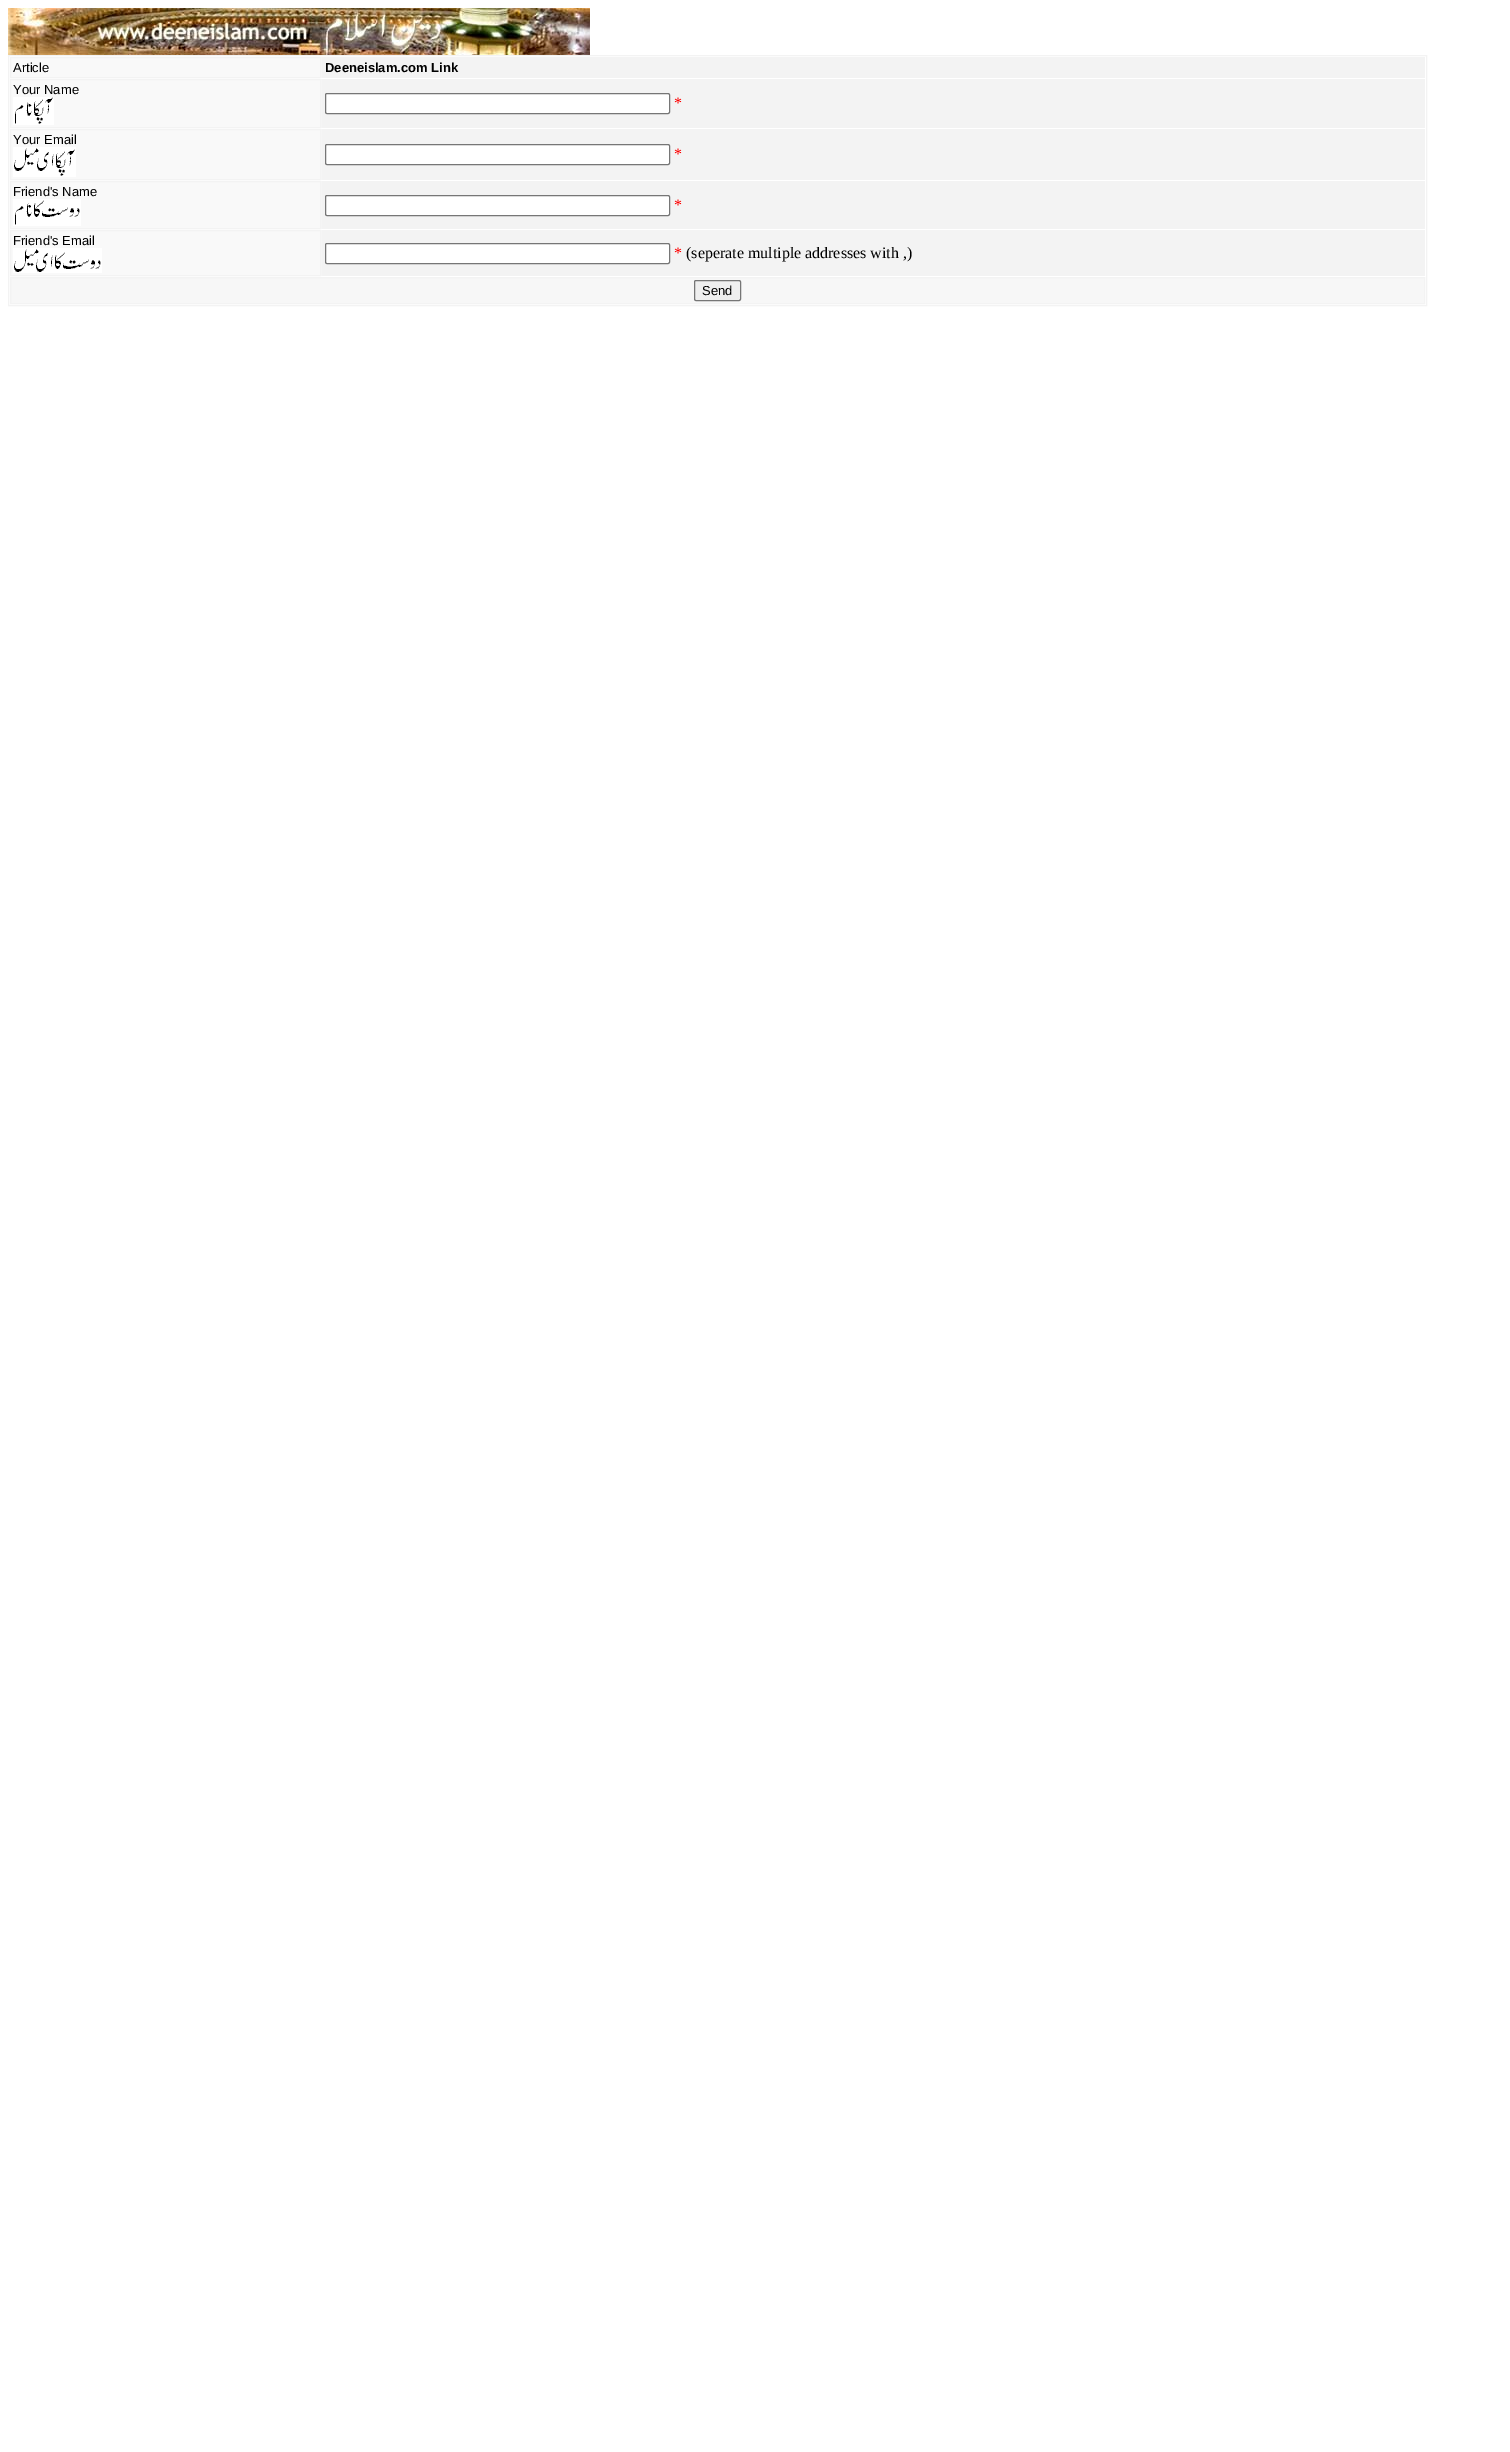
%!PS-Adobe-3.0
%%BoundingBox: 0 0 1510 2452
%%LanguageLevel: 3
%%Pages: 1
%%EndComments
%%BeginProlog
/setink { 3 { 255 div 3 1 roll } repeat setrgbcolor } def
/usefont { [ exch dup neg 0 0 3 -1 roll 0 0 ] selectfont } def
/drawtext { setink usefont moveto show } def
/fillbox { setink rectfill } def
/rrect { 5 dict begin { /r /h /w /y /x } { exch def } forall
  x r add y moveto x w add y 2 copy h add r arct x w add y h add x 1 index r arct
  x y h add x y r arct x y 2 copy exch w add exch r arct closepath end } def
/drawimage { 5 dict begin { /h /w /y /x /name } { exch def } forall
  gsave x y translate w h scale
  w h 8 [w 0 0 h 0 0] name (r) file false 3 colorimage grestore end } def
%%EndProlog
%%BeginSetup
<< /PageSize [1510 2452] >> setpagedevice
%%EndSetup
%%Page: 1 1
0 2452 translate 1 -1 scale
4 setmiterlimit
0 0 1510 2452 255 255 255 fillbox
(assets/img1.rgb) 8 8 582 47 drawimage
243 243 243 setink
8.5 55.5 1418 250 rectstroke
321 57 1 21 247 247 247 fillbox
249 249 249 setink
10.5 57.5 moveto 320.5 57.5 lineto 320.5 77.5 lineto 10.5 77.5 lineto closepath gsave fill grestore
243 243 243 setink
stroke
(Article) 13 72 /LiberationSans-Regular 13 0 0 0 drawtext
322 57 1103 21 243 243 243 fillbox
(Deeneislam.com Link) 325 72 /LiberationSans-Bold 13 0 0 0 drawtext
321 79 1 49 247 247 247 fillbox
249 249 249 setink
10.5 79.5 moveto 320.5 79.5 lineto 320.5 127.5 lineto 10.5 127.5 lineto closepath gsave fill grestore
243 243 243 setink
stroke
(Your Name) 13 94 /LiberationSans-Regular 13 0 0 0 drawtext
(assets/img2.rgb) 13 97 41 28 drawimage
322 79 1103 49 243 243 243 fillbox
255 255 255 setink
325.5 93.5 344 20 1.5 rrect gsave fill grestore
118 118 118 setink
stroke
(*) 674 108 /LiberationSerif-Regular 16 255 0 0 drawtext
321 129 1 51 247 247 247 fillbox
249 249 249 setink
10.5 129.5 moveto 320.5 129.5 lineto 320.5 179.5 lineto 10.5 179.5 lineto closepath gsave fill grestore
243 243 243 setink
stroke
(Your Email) 13 144 /LiberationSans-Regular 13 0 0 0 drawtext
(assets/img3.rgb) 13 147 63 30 drawimage
322 129 1103 51 243 243 243 fillbox
255 255 255 setink
325.5 144.5 344 20 1.5 rrect gsave fill grestore
118 118 118 setink
stroke
(*) 674 159 /LiberationSerif-Regular 16 255 0 0 drawtext
321 181 1 48 247 247 247 fillbox
249 249 249 setink
10.5 181.5 moveto 320.5 181.5 lineto 320.5 228.5 lineto 10.5 228.5 lineto closepath gsave fill grestore
243 243 243 setink
stroke
(Friend's Name) 13 196 /LiberationSans-Regular 13 0 0 0 drawtext
(assets/img4.rgb) 13 199 68 27 drawimage
322 181 1103 48 243 243 243 fillbox
255 255 255 setink
325.5 195.5 344 20 1.5 rrect gsave fill grestore
118 118 118 setink
stroke
(*) 674 210 /LiberationSerif-Regular 16 255 0 0 drawtext
321 230 1 46 247 247 247 fillbox
249 249 249 setink
10.5 230.5 moveto 320.5 230.5 lineto 320.5 275.5 lineto 10.5 275.5 lineto closepath gsave fill grestore
243 243 243 setink
stroke
(Friend's Email) 13 245 /LiberationSans-Regular 13 0 0 0 drawtext
(assets/img5.rgb) 13 248 89 25 drawimage
322 230 1103 46 243 243 243 fillbox
255 255 255 setink
325.5 243.5 344 20 1.5 rrect gsave fill grestore
118 118 118 setink
stroke
(*) 674 258 /LiberationSerif-Regular 16 255 0 0 drawtext
(\(seperate multiple addresses with ,\)) 686 258 /LiberationSerif-Regular 16 0 0 0 drawtext
247 247 247 setink
10.5 277.5 moveto 1424.5 277.5 lineto 1424.5 303.5 lineto 10.5 303.5 lineto closepath gsave fill grestore
243 243 243 setink
stroke
239 239 239 setink
694.5 280.5 46 20 1.5 rrect gsave fill grestore
118 118 118 setink
stroke
(Send) 702 295 /LiberationSans-Regular 13 0 0 0 drawtext
showpage
%%EOF
